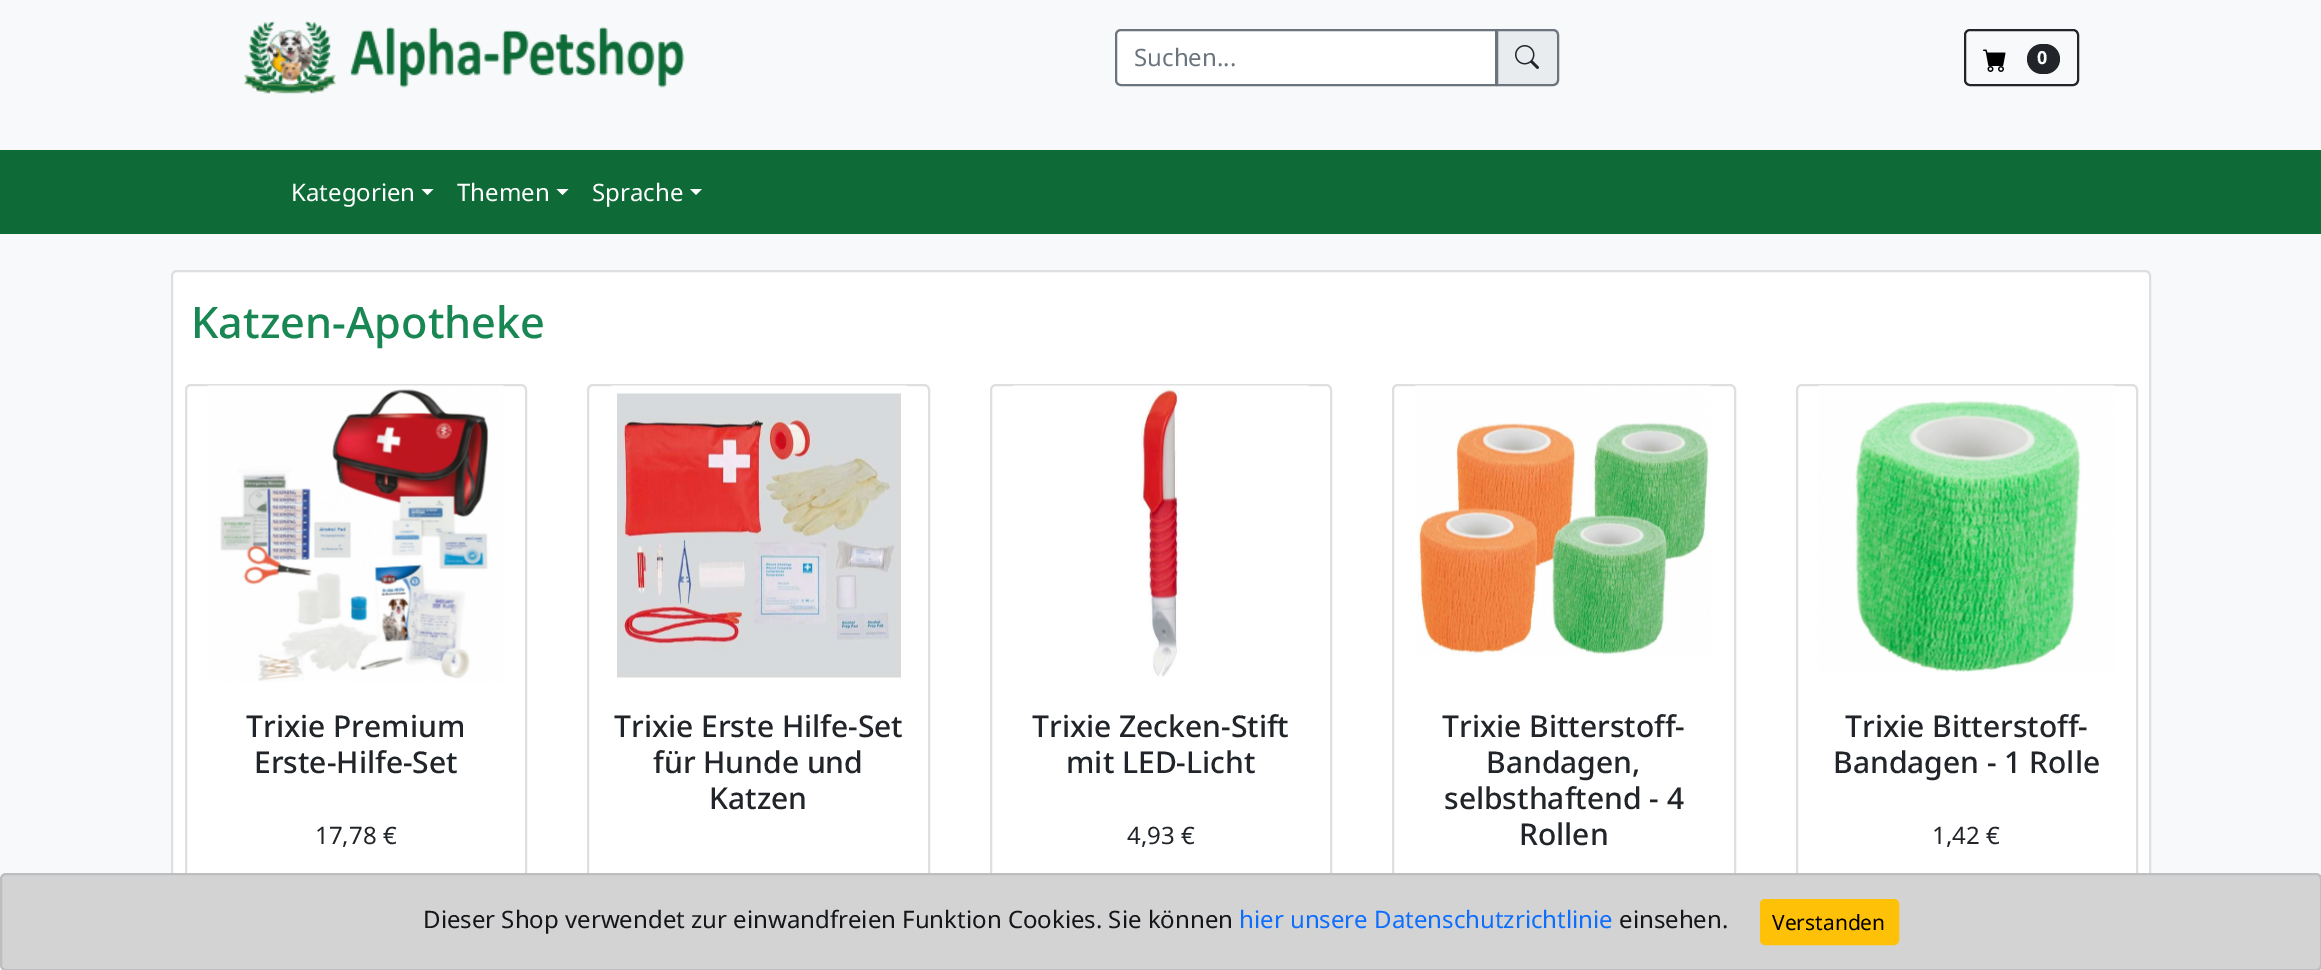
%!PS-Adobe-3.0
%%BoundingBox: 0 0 2321 970
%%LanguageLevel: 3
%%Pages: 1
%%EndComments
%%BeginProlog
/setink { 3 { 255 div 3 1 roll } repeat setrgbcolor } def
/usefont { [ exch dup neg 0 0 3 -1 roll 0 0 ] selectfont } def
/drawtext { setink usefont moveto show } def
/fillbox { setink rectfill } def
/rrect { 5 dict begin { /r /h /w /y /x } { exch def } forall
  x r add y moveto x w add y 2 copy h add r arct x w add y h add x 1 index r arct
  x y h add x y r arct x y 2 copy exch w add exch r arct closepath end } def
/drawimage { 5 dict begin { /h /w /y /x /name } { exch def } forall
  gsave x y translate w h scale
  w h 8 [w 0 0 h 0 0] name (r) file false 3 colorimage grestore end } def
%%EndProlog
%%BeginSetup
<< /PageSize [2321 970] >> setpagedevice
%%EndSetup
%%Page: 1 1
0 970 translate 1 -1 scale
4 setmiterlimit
0 0 2321 970 248 249 250 fillbox
(assets/img1.rgb) 244 21 441 73 drawimage
233 236 239 setink
1497 30 moveto 1553 30 lineto 1556 30 1558 32 1558 35 curveto 1558 80 lineto 1558 83 1556 85 1553 85 curveto 1497 85 lineto closepath gsave fill grestore
108 117 125 setink
2 setlinewidth
stroke
255 255 255 setink
1121 30 moveto 1496 30 lineto 1496 85 lineto 1121 85 lineto 1118 85 1116 83 1116 80 curveto 1116 35 lineto 1116 32 1118 30 1121 30 curveto closepath gsave fill grestore
108 117 125 setink
stroke
(Suchen...) 1134 66 /NotoSans-Regular 24 108 117 125 drawtext
(assets/img2.rgb) 1515 45 24 24 drawimage
33 37 41 setink
1965 30 113 55 5 rrect stroke
(assets/img3.rgb) 1983 49 23 23 drawimage
2027 44 33 30 15 rrect fill
(0) 2037 64 /NotoSans-Bold 18 255 255 255 drawtext
0 150 2321 84 14 106 55 fillbox
(Kategorien) 291 201 /NotoSans-Regular 24 255 255 255 drawtext
421.5 189 moveto 433.5 189 lineto 427.5 195 lineto closepath fill
(Themen) 457 201 /NotoSans-Regular 24 255 255 255 drawtext
556.5 189 moveto 568.5 189 lineto 562.5 195 lineto closepath fill
(Sprache) 592 201 /NotoSans-Regular 24 255 255 255 drawtext
690 189 moveto 702 189 lineto 696 195 lineto closepath fill
172 271 1978 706 5 rrect gsave fill grestore
223 223 223 setink
stroke
(Katzen-Apotheke) 191 338 /NotoSans-Medium 43.25 25 135 84 drawtext
223 223 223 setink
186 385 340 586 5 rrect stroke
(assets/img4.rgb) 207 385 297 297 drawimage
(Trixie Premium) 246 737 /NotoSans-Medium 30 33 37 41 drawtext
(Erste-Hilfe-Set) 254 773 /NotoSans-Medium 30 33 37 41 drawtext
(17,78 €) 315 844 /NotoSans-Regular 24 33 37 41 drawtext
223 223 223 setink
588 385 341 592 5 rrect stroke
(assets/img5.rgb) 611 385 296 293 drawimage
(Trixie Erste Hilfe-Set) 614 737 /NotoSans-Medium 30 33 37 41 drawtext
(für Hunde und) 653 773 /NotoSans-Medium 30 33 37 41 drawtext
(Katzen) 709 809 /NotoSans-Medium 30 33 37 41 drawtext
223 223 223 setink
991 385 340 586 5 rrect stroke
(assets/img6.rgb) 1013 385 296 292 drawimage
(Trixie Zecken-Stift) 1032 737 /NotoSans-Medium 30 33 37 41 drawtext
(mit LED-Licht) 1066 773 /NotoSans-Medium 30 33 37 41 drawtext
(4,93 €) 1127 844 /NotoSans-Regular 24 33 37 41 drawtext
223 223 223 setink
1393 385 342 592 5 rrect stroke
(assets/img7.rgb) 1415 385 296 270 drawimage
(Trixie Bitterstoff-) 1442 737 /NotoSans-Medium 30 33 37 41 drawtext
(Bandagen,) 1486 773 /NotoSans-Medium 30 33 37 41 drawtext
(selbsthaftend - 4) 1444 809 /NotoSans-Medium 30 33 37 41 drawtext
(Rollen) 1519 845 /NotoSans-Medium 30 33 37 41 drawtext
223 223 223 setink
1797 385 340 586 5 rrect stroke
(assets/img8.rgb) 1818 385 297 287 drawimage
(Trixie Bitterstoff-) 1845 737 /NotoSans-Medium 30 33 37 41 drawtext
(Bandagen - 1 Rolle) 1833 773 /NotoSans-Medium 30 33 37 41 drawtext
(1,42 €) 1932 844 /NotoSans-Regular 24 33 37 41 drawtext
211 211 212 setink
1 874 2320 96 5 rrect gsave fill grestore
188 190 191 setink
stroke
(Dieser Shop verwendet zur einwandfreien Funktion Cookies. Sie können) 423 928 /NotoSans-Regular 24 20 22 25 drawtext
(hier unsere Datenschutzrichtlinie) 1239 928 /NotoSans-Regular 24 13 110 253 drawtext
(einsehen.) 1619 928 /NotoSans-Regular 24 20 22 25 drawtext
255 193 7 setink
1761 900 137 44 4 rrect gsave fill grestore
stroke
(Verstanden) 1772 930 /NotoSans-Regular 21 0 0 0 drawtext
showpage
%%EOF
